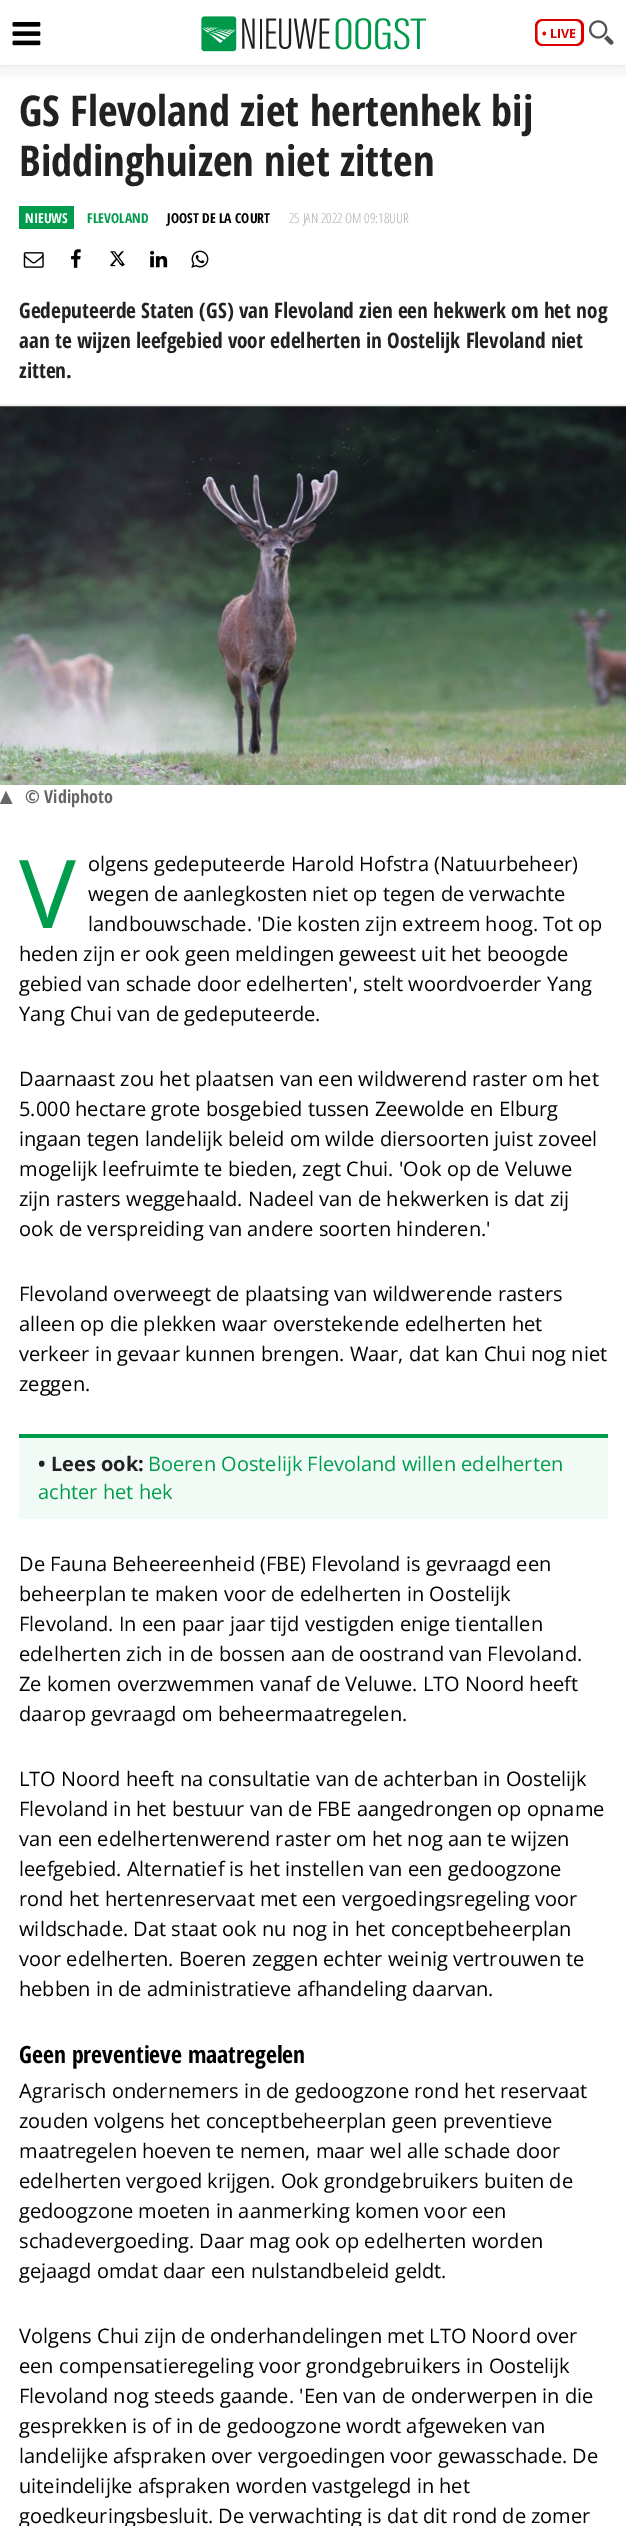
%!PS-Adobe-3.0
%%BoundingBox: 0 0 626 2526
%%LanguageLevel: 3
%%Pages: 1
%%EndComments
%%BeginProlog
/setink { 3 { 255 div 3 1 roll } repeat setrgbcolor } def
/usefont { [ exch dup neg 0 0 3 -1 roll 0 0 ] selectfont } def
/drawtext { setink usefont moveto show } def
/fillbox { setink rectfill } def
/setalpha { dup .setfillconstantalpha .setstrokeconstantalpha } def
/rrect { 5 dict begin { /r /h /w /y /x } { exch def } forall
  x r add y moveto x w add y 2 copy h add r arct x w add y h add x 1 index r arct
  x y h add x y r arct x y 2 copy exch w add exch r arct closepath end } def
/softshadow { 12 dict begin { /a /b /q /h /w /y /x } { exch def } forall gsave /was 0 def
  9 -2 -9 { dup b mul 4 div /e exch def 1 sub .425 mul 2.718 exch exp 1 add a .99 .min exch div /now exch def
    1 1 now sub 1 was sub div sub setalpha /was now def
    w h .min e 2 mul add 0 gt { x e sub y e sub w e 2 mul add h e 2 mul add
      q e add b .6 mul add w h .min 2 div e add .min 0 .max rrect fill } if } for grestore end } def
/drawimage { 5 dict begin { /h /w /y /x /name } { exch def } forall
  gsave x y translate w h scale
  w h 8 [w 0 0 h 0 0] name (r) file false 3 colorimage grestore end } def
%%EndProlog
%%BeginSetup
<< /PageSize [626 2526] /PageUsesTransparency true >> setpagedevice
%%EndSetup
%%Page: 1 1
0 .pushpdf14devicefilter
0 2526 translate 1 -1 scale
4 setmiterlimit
0 0 626 2526 255 255 255 fillbox
gsave
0 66 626 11 rectclip
0 0 0 setink
0 0 626 66 0 12.5 0.1 softshadow
grestore
0 65 626 1 233 233 233 fillbox
(assets/img1.rgb) 12 22 29 24 drawimage
(assets/img2.rgb) 201 16 225 36 drawimage
221 0 0 setink
542.5 19 moveto 550 19 lineto 550 46 lineto 542.5 46 lineto 538.5 46 535 43 535 39 curveto 535 26 lineto 535 22 538.5 19 542.5 19 curveto closepath 542.5 21 moveto 550 21 lineto 550 44 lineto 542.5 44 lineto 539.5 44 537.5 41.5 537.5 39 curveto 537.5 26 lineto 537.5 23.5 539.5 21 542.5 21 curveto closepath 550 19 moveto 576 19 lineto 580.5 19 584 22 584 26 curveto 584 39 lineto 584 43 580.5 46 576 46 curveto 550 46 lineto closepath 550 21 moveto 576 21 lineto 579 21 581 23.5 581 26 curveto 581 39 lineto 581 41.5 579 44 576 44 curveto 550 44 lineto closepath eofill
(• LIVE) 542 38 /OpenSans-Bold 12.5 221 0 0 drawtext
(assets/img3.rgb) 589 20 25 25 drawimage
0 404 626 3 241 241 241 fillbox
(GS Flevoland ziet hertenhek bij) 19 126 /OpenSansCondensed-Bold 42.5 34 34 34 drawtext
(Biddinghuizen niet zitten) 19 176 /OpenSansCondensed-Bold 42.5 34 34 34 drawtext
19 206 55 23 0 156 78 fillbox
(NIEUWS) 25 223 /OpenSansCondensed-Bold 13.75 255 255 255 drawtext
(FLEVOLAND) 87 223 /OpenSansCondensed-Bold 13.75 0 156 78 drawtext
(JOOST DE LA COURT) 167 223 /OpenSansCondensed-Bold 13.75 0 0 0 drawtext
(25 JAN 2022 OM 09:18UUR) 289 223 /OpenSansCondensed-Light 13.75 170 170 170 drawtext
(assets/img4.rgb) 23 252 21 16 drawimage
(assets/img5.rgb) 71 249 10 19 drawimage
(assets/img6.rgb) 110 251 15 16 drawimage
(assets/img7.rgb) 150 250 18 18 drawimage
(assets/img8.rgb) 191 250 18 18 drawimage
(Gedeputeerde Staten \(GS\) van Flevoland zien een hekwerk om het nog) 19 318 /OpenSansCondensed-Bold 21.25 34 34 34 drawtext
(aan te wijzen leefgebied voor edelherten in Oostelijk Flevoland niet) 19 348 /OpenSansCondensed-Bold 21.25 34 34 34 drawtext
(zitten.) 19 378 /OpenSansCondensed-Bold 21.25 34 34 34 drawtext
(assets/img9.rgb) 0 406 626 379 drawimage
102 102 102 setink
12.5 804 moveto 0 804 lineto 6 791 lineto closepath fill
(© Vidiphoto) 25 803 /OpenSansCondensed-Bold 18 102 102 102 drawtext
(V) 19 928 /NotoSans-Regular 95 0 156 78 drawtext
(olgens gedeputeerde Harold Hofstra \(Natuurbeheer\)) 88 871 /OpenSans-Regular 20 0 0 0 drawtext
(wegen de aanlegkosten niet op tegen de verwachte) 88 901 /OpenSans-Regular 20 0 0 0 drawtext
(landbouwschade. 'Die kosten zijn extreem hoog. Tot op) 88 931 /OpenSans-Regular 20 0 0 0 drawtext
(heden zijn er ook geen meldingen geweest uit het beoogde) 19 961 /OpenSans-Regular 20 0 0 0 drawtext
(gebied van schade door edelherten', stelt woordvoerder Yang) 19 991 /OpenSans-Regular 20 0 0 0 drawtext
(Yang Chui van de gedeputeerde.) 19 1021 /OpenSans-Regular 20 0 0 0 drawtext
(Daarnaast zou het plaatsen van een wildwerend raster om het) 19 1086 /OpenSans-Regular 20 0 0 0 drawtext
(5.000 hectare grote bosgebied tussen Zeewolde en Elburg) 19 1116 /OpenSans-Regular 20 0 0 0 drawtext
(ingaan tegen landelijk beleid om wilde diersoorten juist zoveel) 19 1146 /OpenSans-Regular 20 0 0 0 drawtext
(mogelijk leefruimte te bieden, zegt Chui. 'Ook op de Veluwe) 19 1176 /OpenSans-Regular 20 0 0 0 drawtext
(zijn rasters weggehaald. Nadeel van de hekwerken is dat zij) 19 1206 /OpenSans-Regular 20 0 0 0 drawtext
(ook de verspreiding van andere soorten hinderen.') 19 1236 /OpenSans-Regular 20 0 0 0 drawtext
(Flevoland overweegt de plaatsing van wildwerende rasters) 19 1301 /OpenSans-Regular 20 0 0 0 drawtext
(alleen op die plekken waar overstekende edelherten het) 19 1331 /OpenSans-Regular 20 0 0 0 drawtext
(verkeer in gevaar kunnen brengen. Waar, dat kan Chui nog niet) 19 1361 /OpenSans-Regular 20 0 0 0 drawtext
(zeggen.) 19 1391 /OpenSans-Regular 20 0 0 0 drawtext
19 1438 589 81 242 250 246 fillbox
19 1434 589 4 0 156 78 fillbox
(• Lees ook:) 38 1471 /OpenSans-Bold 20 34 34 34 drawtext
(Boeren Oostelijk Flevoland willen edelherten) 148 1471 /OpenSans-Regular 20 0 156 78 drawtext
(achter het hek) 38 1499 /OpenSans-Regular 20 0 156 78 drawtext
(De Fauna Beheereenheid \(FBE\) Flevoland is gevraagd een) 19 1571 /OpenSans-Regular 20 0 0 0 drawtext
(beheerplan te maken voor de edelherten in Oostelijk) 19 1601 /OpenSans-Regular 20 0 0 0 drawtext
(Flevoland. In een paar jaar tijd vestigden enige tientallen) 19 1631 /OpenSans-Regular 20 0 0 0 drawtext
(edelherten zich in de bossen aan de oostrand van Flevoland.) 19 1661 /OpenSans-Regular 20 0 0 0 drawtext
(Ze komen overzwemmen vanaf de Veluwe. LTO Noord heeft) 19 1691 /OpenSans-Regular 20 0 0 0 drawtext
(daarop gevraagd om beheermaatregelen.) 19 1721 /OpenSans-Regular 20 0 0 0 drawtext
(LTO Noord heeft na consultatie van de achterban in Oostelijk) 19 1786 /OpenSans-Regular 20 0 0 0 drawtext
(Flevoland in het bestuur van de FBE aangedrongen op opname) 19 1816 /OpenSans-Regular 20 0 0 0 drawtext
(van een edelhertenwerend raster om het nog aan te wijzen) 19 1846 /OpenSans-Regular 20 0 0 0 drawtext
(leefgebied. Alternatief is het instellen van een gedoogzone) 19 1876 /OpenSans-Regular 20 0 0 0 drawtext
(rond het hertenreservaat met een vergoedingsregeling voor) 19 1906 /OpenSans-Regular 20 0 0 0 drawtext
(wildschade. Dat staat ook nu nog in het conceptbeheerplan) 19 1936 /OpenSans-Regular 20 0 0 0 drawtext
(voor edelherten. Boeren zeggen echter weinig vertrouwen te) 19 1966 /OpenSans-Regular 20 0 0 0 drawtext
(hebben in de administratieve afhandeling daarvan.) 19 1996 /OpenSans-Regular 20 0 0 0 drawtext
(Geen preventieve maatregelen) 19 2063 /OpenSansCondensed-Bold 23.75 0 0 0 drawtext
(Agrarisch ondernemers in de gedoogzone rond het reservaat) 19 2098 /OpenSans-Regular 20 0 0 0 drawtext
(zouden volgens het conceptbeheerplan geen preventieve) 19 2128 /OpenSans-Regular 20 0 0 0 drawtext
(maatregelen hoeven te nemen, maar wel alle schade door) 19 2158 /OpenSans-Regular 20 0 0 0 drawtext
(edelherten vergoed krijgen. Ook grondgebruikers buiten de) 19 2188 /OpenSans-Regular 20 0 0 0 drawtext
(gedoogzone moeten in aanmerking komen voor een) 19 2218 /OpenSans-Regular 20 0 0 0 drawtext
(schadevergoeding. Daar mag ook op edelherten worden) 19 2248 /OpenSans-Regular 20 0 0 0 drawtext
(gejaagd omdat daar een nulstandbeleid geldt.) 19 2278 /OpenSans-Regular 20 0 0 0 drawtext
(Volgens Chui zijn de onderhandelingen met LTO Noord over) 19 2343 /OpenSans-Regular 20 0 0 0 drawtext
(een compensatieregeling voor grondgebruikers in Oostelijk) 19 2373 /OpenSans-Regular 20 0 0 0 drawtext
(Flevoland nog steeds gaande. 'Een van de onderwerpen in die) 19 2403 /OpenSans-Regular 20 0 0 0 drawtext
(gesprekken is of in de gedoogzone wordt afgeweken van) 19 2433 /OpenSans-Regular 20 0 0 0 drawtext
(landelijke afspraken over vergoedingen voor gewasschade. De) 19 2463 /OpenSans-Regular 20 0 0 0 drawtext
(uiteindelijke afspraken worden vastgelegd in het) 19 2493 /OpenSans-Regular 20 0 0 0 drawtext
(goedkeuringsbesluit. De verwachting is dat dit rond de zomer) 19 2523 /OpenSans-Regular 20 0 0 0 drawtext
.poppdf14devicefilter showpage
%%EOF
